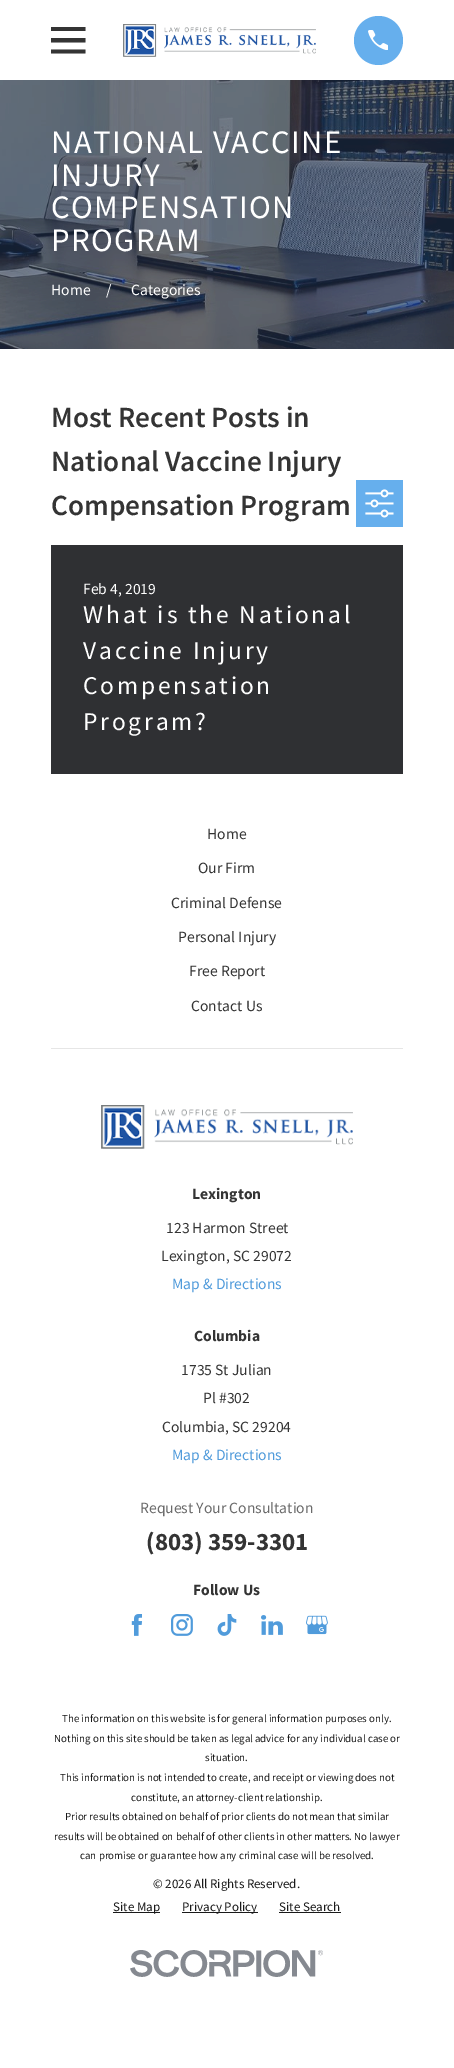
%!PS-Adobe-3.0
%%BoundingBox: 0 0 454 2068
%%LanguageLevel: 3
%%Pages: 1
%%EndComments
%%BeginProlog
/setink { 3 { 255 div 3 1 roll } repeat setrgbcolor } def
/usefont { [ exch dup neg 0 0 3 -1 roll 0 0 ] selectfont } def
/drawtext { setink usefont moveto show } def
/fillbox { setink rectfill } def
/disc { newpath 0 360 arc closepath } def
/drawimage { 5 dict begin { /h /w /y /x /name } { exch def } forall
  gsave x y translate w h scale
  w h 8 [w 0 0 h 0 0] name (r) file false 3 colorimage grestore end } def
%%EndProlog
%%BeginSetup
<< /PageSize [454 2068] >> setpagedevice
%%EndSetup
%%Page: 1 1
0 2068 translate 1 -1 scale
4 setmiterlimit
0 0 454 2068 255 255 255 fillbox
52 52 52 setink
51 27 moveto 51 31 lineto 85.5 31 lineto 85.5 27 lineto closepath 51 38 moveto 51 42.5 lineto 85.5 42.5 lineto 85.5 38 lineto closepath 51 49.5 moveto 51 53.5 lineto 85.5 53.5 lineto 85.5 49.5 lineto closepath fill
(assets/img1.rgb) 123 24 193 33 drawimage
102 175 237 setink
378.5 40.5 24.5 disc fill
(assets/img2.rgb) 368 30 20 20 drawimage
0 80 454 269 31 51 81 fillbox
(assets/img3.rgb) 0 80 454 269 drawimage
/SourceSansPro-Regular 32.75 usefont
255 255 255 setink
51 153 moveto 1.5 0 (NATIONAL VACCINE) ashow
51 186 moveto 1.5 0 (INJURY) ashow
51 218 moveto 1.5 0 (COMPENSATION) ashow
51 251 moveto 1.5 0 (PROGRAM) ashow
(Home) 51 295 /SourceSansPro-Regular 15.6 255 255 255 drawtext
(/) 106 295 /SourceSansPro-Regular 15.6 255 255 255 drawtext
(Categories) 131 295 /SourceSansPro-Regular 15.6 255 255 255 drawtext
(Most Recent Posts in) 51 427 /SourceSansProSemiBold-SemiBold 29.25 52 52 52 drawtext
(National Vaccine Injury) 51 471 /SourceSansProSemiBold-SemiBold 29.25 52 52 52 drawtext
(Compensation Program) 51 515 /SourceSansProSemiBold-SemiBold 29.25 52 52 52 drawtext
356 480 47 47 102 175 237 fillbox
(assets/img4.rgb) 365 489 29 29 drawimage
51 545 352 229 47 48 51 fillbox
(Feb 4, 2019) 83 594 /SourceSansPro-Regular 15.6 255 255 255 drawtext
/SourceSansPro-Regular 25.5 usefont
83 623 moveto 2.8 0 (What is the National) ashow
83 659 moveto 2.8 0 (Vaccine Injury) ashow
83 694 moveto 2.8 0 (Compensation) ashow
83 730 moveto 2.8 0 (Program?) ashow
51 1048 352 1 230 230 230 fillbox
(Home) 207 839 /SourceSansPro-Regular 15.6 52 52 52 drawtext
(Our Firm) 198 873 /SourceSansPro-Regular 15.6 52 52 52 drawtext
(Criminal Defense) 171 908 /SourceSansPro-Regular 15.6 52 52 52 drawtext
(Personal Injury) 178 942 /SourceSansPro-Regular 15.6 52 52 52 drawtext
(Free Report) 189 976 /SourceSansPro-Regular 15.6 52 52 52 drawtext
(Contact Us) 191 1011 /SourceSansPro-Regular 15.6 52 52 52 drawtext
(assets/img5.rgb) 101 1105 252 44 drawimage
(Lexington) 192 1199 /SourceSansPro-Bold 15.6 52 52 52 drawtext
(123 Harmon Street) 166 1233 /SourceSansPro-Regular 15.6 52 52 52 drawtext
(Lexington, SC 29072) 161 1261 /SourceSansPro-Regular 15.6 52 52 52 drawtext
(Map & Directions) 172 1289 /SourceSansPro-Regular 15.6 80 155 219 drawtext
(Columbia) 194 1341 /SourceSansPro-Bold 15.6 52 52 52 drawtext
(1735 St Julian) 181 1375 /SourceSansPro-Regular 15.6 52 52 52 drawtext
(Pl #302) 203 1403 /SourceSansPro-Regular 15.6 52 52 52 drawtext
(Columbia, SC 29204) 162 1432 /SourceSansPro-Regular 15.6 52 52 52 drawtext
(Map & Directions) 172 1460 /SourceSansPro-Regular 15.6 80 155 219 drawtext
(Request Your Consultation) 140 1513 /SourceSansPro-Regular 15.6 107 107 107 drawtext
(\(803\) 359-3301) 146 1550 /SourceSansPro-Bold 25 52 52 52 drawtext
(Follow Us) 193 1595 /SourceSansPro-Bold 15.6 52 52 52 drawtext
(assets/img6.rgb) 131 1614 12 22 drawimage
(assets/img7.rgb) 171 1614 22 22 drawimage
(assets/img8.rgb) 217 1614 20 22 drawimage
(assets/img9.rgb) 261 1615 22 20 drawimage
(assets/img10.rgb) 306 1615 22 20 drawimage
(The information on this website is for general information purposes only.) 62 1722 /SourceSansPro-Regular 10.85 25 25 25 drawtext
(Nothing on this site should be taken as legal advice for any individual case or) 54 1742 /SourceSansPro-Regular 10.85 25 25 25 drawtext
(situation.) 205 1761 /SourceSansPro-Regular 10.85 25 25 25 drawtext
(This information is not intended to create, and receipt or viewing does not) 60 1781 /SourceSansPro-Regular 10.85 25 25 25 drawtext
(constitute, an attorney-client relationship.) 131 1801 /SourceSansPro-Regular 10.85 25 25 25 drawtext
(Prior results obtained on behalf of prior clients do not mean that similar) 65 1820 /SourceSansPro-Regular 10.85 25 25 25 drawtext
(results will be obtained on behalf of other clients in other matters. No lawyer) 54 1840 /SourceSansPro-Regular 10.85 25 25 25 drawtext
(can promise or guarantee how any criminal case will be resolved.) 80 1859 /SourceSansPro-Regular 10.85 25 25 25 drawtext
(© 2026 All Rights Reserved.) 153 1888 /SourceSansPro-Regular 13 25 25 25 drawtext
113 1912 47 1 25 25 25 fillbox
(Site Map) 113 1911 /SourceSansPro-Regular 13 25 25 25 drawtext
182 1912 76 1 25 25 25 fillbox
(Privacy Policy) 182 1911 /SourceSansPro-Regular 13 25 25 25 drawtext
(Site Search) 279 1911 /SourceSansPro-Regular 13 25 25 25 drawtext
279 1912 62 1 25 25 25 fillbox
(assets/img11.rgb) 130 1950 193 27 drawimage
showpage
%%EOF
